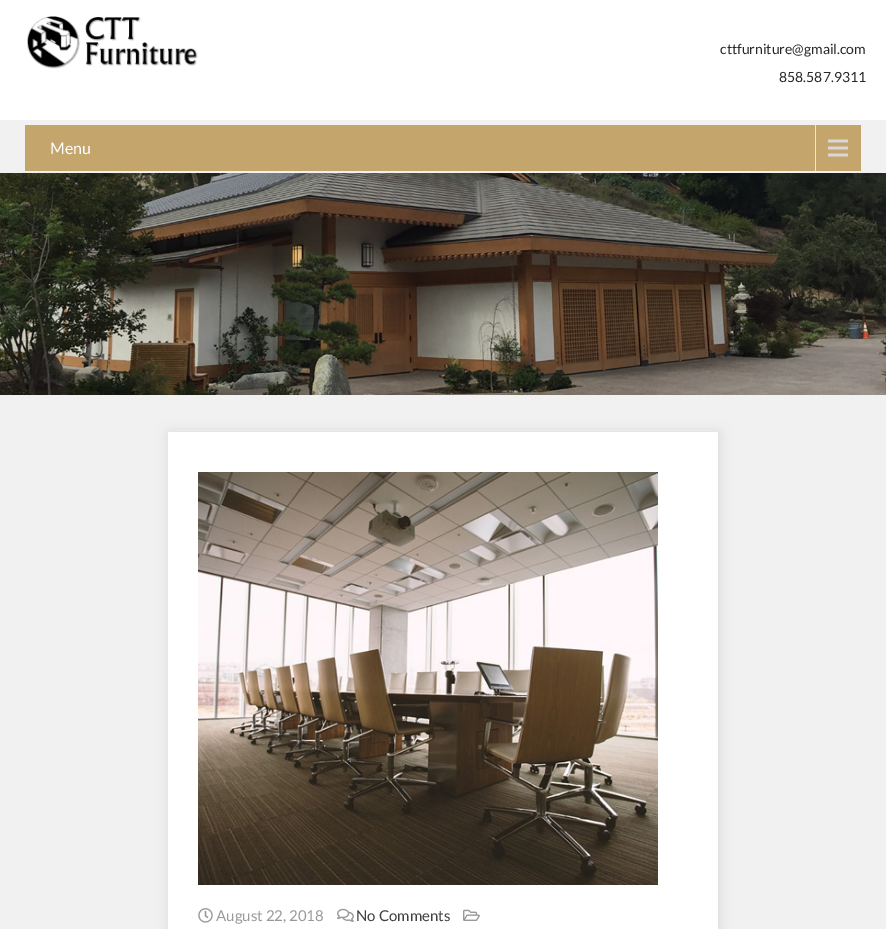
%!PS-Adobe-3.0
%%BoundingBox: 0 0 886 929
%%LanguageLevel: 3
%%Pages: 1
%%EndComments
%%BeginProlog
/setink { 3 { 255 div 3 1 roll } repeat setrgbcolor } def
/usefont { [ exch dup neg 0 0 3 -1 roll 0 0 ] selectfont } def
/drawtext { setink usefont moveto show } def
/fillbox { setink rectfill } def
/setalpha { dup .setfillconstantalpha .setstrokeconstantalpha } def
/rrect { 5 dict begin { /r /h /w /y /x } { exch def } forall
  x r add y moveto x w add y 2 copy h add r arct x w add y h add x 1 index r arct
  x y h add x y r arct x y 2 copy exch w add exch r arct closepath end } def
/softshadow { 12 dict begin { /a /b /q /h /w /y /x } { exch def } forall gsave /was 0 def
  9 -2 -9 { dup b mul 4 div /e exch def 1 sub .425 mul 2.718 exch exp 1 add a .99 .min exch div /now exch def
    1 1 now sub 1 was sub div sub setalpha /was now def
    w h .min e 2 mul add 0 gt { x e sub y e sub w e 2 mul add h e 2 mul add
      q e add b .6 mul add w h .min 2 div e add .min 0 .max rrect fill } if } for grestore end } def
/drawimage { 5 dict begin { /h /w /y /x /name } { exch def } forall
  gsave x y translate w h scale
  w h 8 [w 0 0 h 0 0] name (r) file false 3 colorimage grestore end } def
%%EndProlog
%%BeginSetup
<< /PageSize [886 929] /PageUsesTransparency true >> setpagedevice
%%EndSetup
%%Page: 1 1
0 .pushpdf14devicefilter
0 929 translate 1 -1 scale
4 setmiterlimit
0 0 886 929 241 241 241 fillbox
0 0 886 120 255 255 255 fillbox
(assets/img1.rgb) 27 16 171 53 drawimage
(cttfurniture@gmail.com) 720 54 /Lato-Regular 14 39 39 39 drawtext
(858.587.9311) 779 82 /Lato-Regular 14 39 39 39 drawtext
25 125 836 46 196 165 107 fillbox
(assets/img2.rgb) 815 125 33 46 drawimage
(Menu) 50 154 /Lato-Regular 16 255 255 255 drawtext
(assets/img3.rgb) 0 173 886 222 drawimage
0 0 0 setink
169 433 550 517 0 7 0.1 softshadow
168 432 550 497 255 255 255 fillbox
(assets/img4.rgb) 198 472 460 413 drawimage
(assets/img5.rgb) 198 908 15 15 drawimage
(August 22, 2018) 216 921 /Lato-Regular 15 153 153 153 drawtext
(assets/img6.rgb) 337 908 17 14 drawimage
(No Comments) 356 921 /Lato-Regular 15 64 64 64 drawtext
(assets/img7.rgb) 463 909 17 12 drawimage
.poppdf14devicefilter showpage
%%EOF
